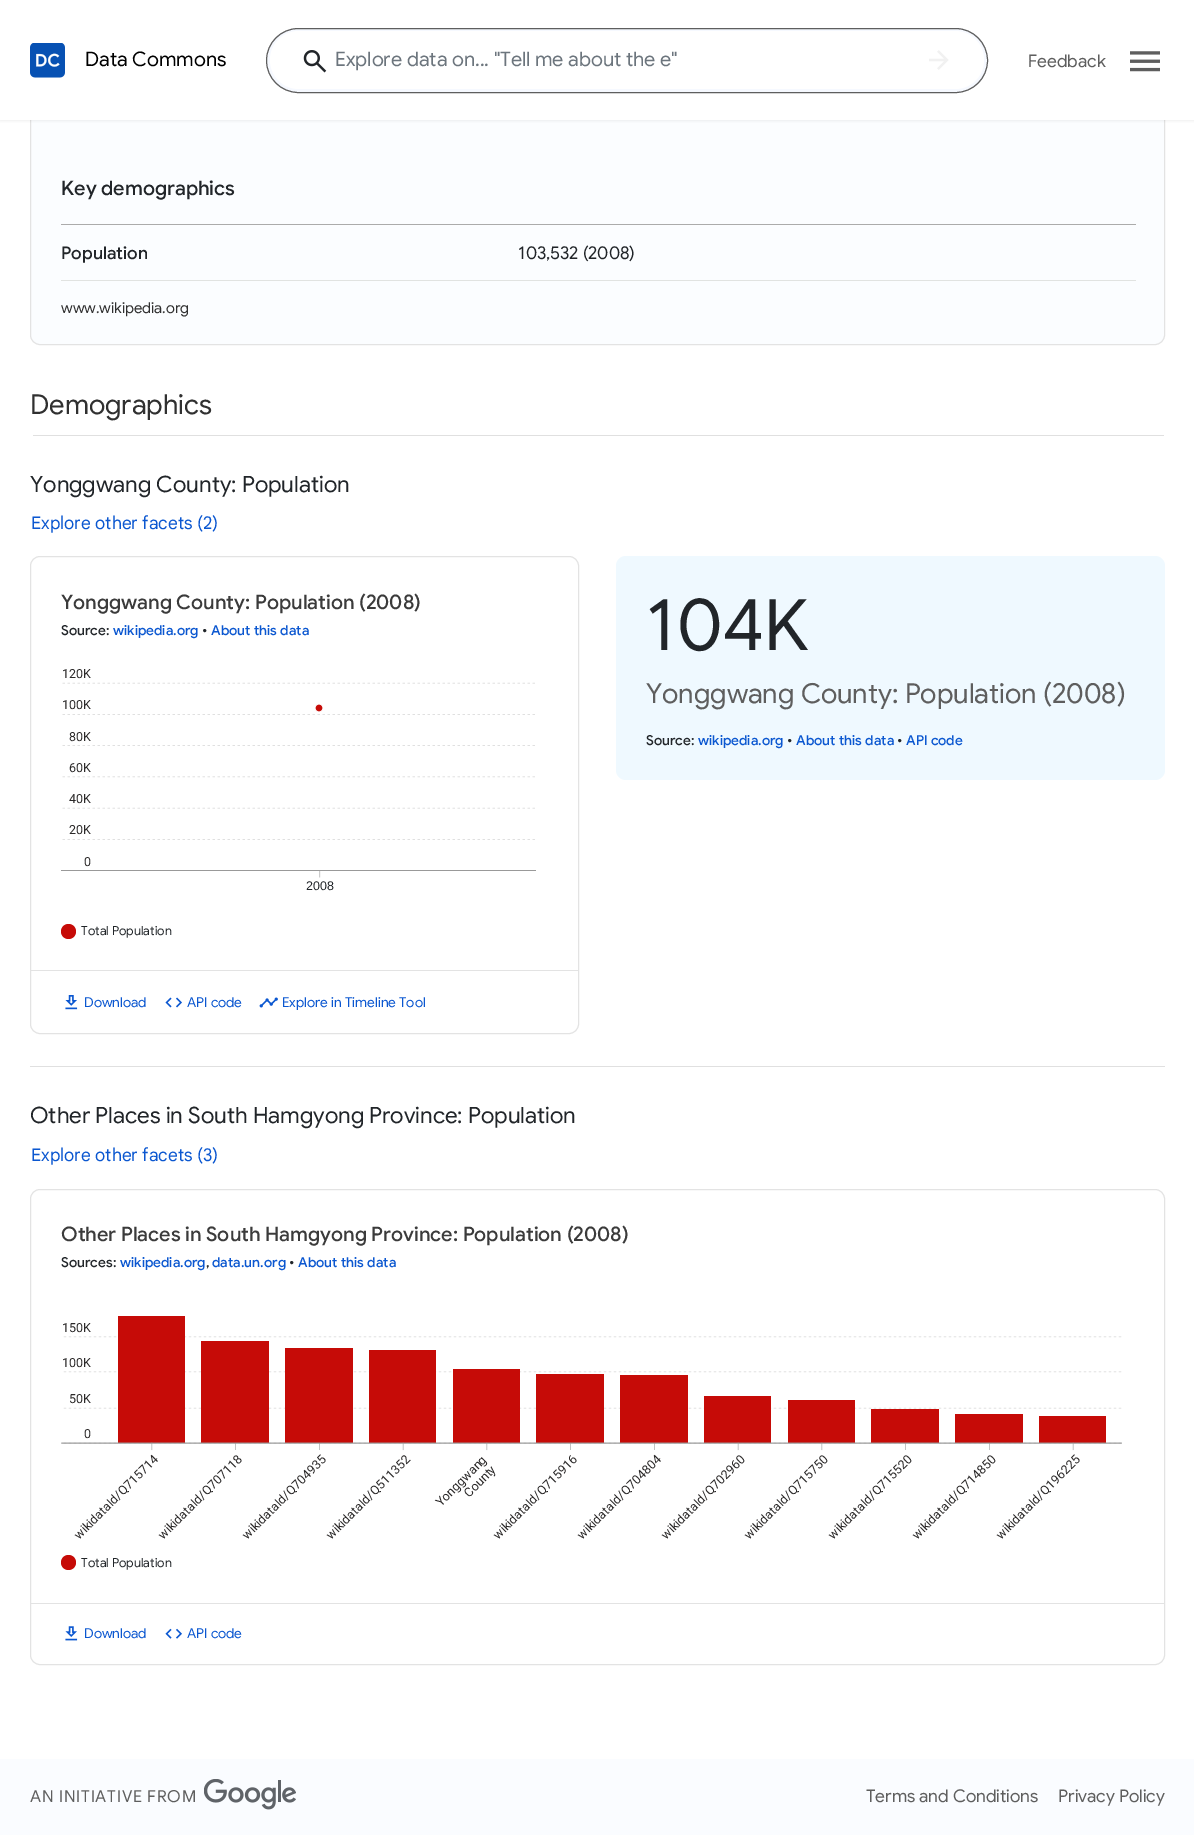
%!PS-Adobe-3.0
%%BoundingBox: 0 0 1194 1835
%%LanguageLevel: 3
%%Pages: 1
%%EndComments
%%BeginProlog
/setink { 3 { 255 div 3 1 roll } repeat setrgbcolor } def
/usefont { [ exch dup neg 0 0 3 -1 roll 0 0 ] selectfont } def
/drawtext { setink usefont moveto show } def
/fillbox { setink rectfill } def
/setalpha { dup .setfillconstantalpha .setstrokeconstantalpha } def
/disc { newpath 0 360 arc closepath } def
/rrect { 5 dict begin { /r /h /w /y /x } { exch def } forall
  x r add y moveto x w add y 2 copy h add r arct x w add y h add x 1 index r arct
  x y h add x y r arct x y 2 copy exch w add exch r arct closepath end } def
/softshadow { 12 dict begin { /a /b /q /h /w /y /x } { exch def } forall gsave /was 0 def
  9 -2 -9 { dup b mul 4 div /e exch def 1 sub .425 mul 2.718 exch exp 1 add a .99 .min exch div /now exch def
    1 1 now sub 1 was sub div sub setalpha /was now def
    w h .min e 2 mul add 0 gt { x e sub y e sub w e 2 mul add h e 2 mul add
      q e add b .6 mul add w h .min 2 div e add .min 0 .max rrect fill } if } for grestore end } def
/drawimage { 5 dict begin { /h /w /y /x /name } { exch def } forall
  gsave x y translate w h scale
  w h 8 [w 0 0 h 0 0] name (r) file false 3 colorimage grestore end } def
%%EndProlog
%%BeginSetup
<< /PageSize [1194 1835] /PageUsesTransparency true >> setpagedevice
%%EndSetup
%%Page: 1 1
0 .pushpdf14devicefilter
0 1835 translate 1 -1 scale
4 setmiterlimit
0 0 1194 1835 255 255 255 fillbox
251 253 255 setink
30.5 -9.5 1134 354 9.5 rrect gsave fill grestore
227 227 227 setink
stroke
94 94 94 setink
0 1 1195 120 0 1 0.1 softshadow
0 0 1194 120 255 255 255 fillbox
(assets/img1.rgb) 30 43 35 35 drawimage
(Data Commons) 85 66 /GoogleSans-Regular 20 0 0 0 drawtext
246 249 255 setink
266.5 28.5 721 64 32 rrect gsave fill grestore
94 94 94 setink
stroke
255 255 255 setink
270 31 714 58 29 rrect fill
(assets/img2.rgb) 303 50 24 23 drawimage
(Explore data on... "Tell me about the e") 335 66 /GoogleSans-Regular 20 108 117 125 drawtext
(assets/img3.rgb) 929 50 20 20 drawimage
(Feedback) 1028 67 /GoogleSans-Regular 17.5 94 94 94 drawtext
(assets/img4.rgb) 1130 51 30 21 drawimage
(Key demographics) 61 195 /GoogleSans-Medium 20 33 37 41 drawtext
61 224 1075 1 171 171 171 fillbox
(Population) 61 259 /GoogleSans-Medium 17.5 33 37 41 drawtext
(103,532 \(2008\)) 518 259 /GoogleSans-Regular 17.5 33 37 41 drawtext
61 280 1075 1 225 227 225 fillbox
(www.wikipedia.org) 61 313 /GoogleSans-Regular 15 48 48 48 drawtext
33 435 1131 1 224 224 224 fillbox
(Demographics) 30 414 /GoogleSans-Regular 27.5 48 48 48 drawtext
(Yonggwang County: Population) 30 492 /GoogleSans-Regular 22.5 33 37 41 drawtext
(Explore other facets \(2\)) 31 529 /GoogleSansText-Regular 17.5 11 87 208 drawtext
227 227 227 setink
30.5 556.5 548 477 9.5 rrect stroke
(Yonggwang County: Population \(2008\)) 61 609 /GoogleSans-Medium 20 59 59 59 drawtext
(Source:) 61 635 /GoogleSans-Medium 13.75 33 37 41 drawtext
(wikipedia.org) 113 635 /GoogleSans-Medium 13.75 11 87 208 drawtext
(•) 202 635 /GoogleSans-Medium 13.75 33 37 41 drawtext
(About this data) 211 635 /GoogleSans-Medium 13.75 11 87 208 drawtext
(120K) 62 678 /Roboto-Regular 12.5 43 41 41 drawtext
(assets/img5.rgb) 61 682 475 196 drawimage
(100K) 62 709 /Roboto-Regular 12.5 43 41 41 drawtext
(80K) 69 741 /Roboto-Regular 12.5 43 41 41 drawtext
(60K) 69 772 /Roboto-Regular 12.5 43 41 41 drawtext
(40K) 69 803 /Roboto-Regular 12.5 43 41 41 drawtext
(20K) 69 834 /Roboto-Regular 12.5 43 41 41 drawtext
(0) 84 866 /Roboto-Regular 12.5 43 41 41 drawtext
(2008) 306 890 /LiberationSans-Regular 12.5 33 37 41 drawtext
198 11 7 setink
68.5 931.5 7.5 disc fill
(Total Population) 81 935 /GoogleSans-Regular 12.5 33 37 41 drawtext
31 970 547 1 227 227 227 fillbox
(assets/img6.rgb) 65 995 13 15 drawimage
(Download) 84 1007 /GoogleSans-Regular 13.75 11 87 208 drawtext
(assets/img7.rgb) 165 997 17 11 drawimage
(API code) 187 1007 /GoogleSans-Regular 13.75 11 87 208 drawtext
(assets/img8.rgb) 259 997 19 11 drawimage
(Explore in Timeline Tool) 282 1007 /GoogleSans-Regular 13.75 11 87 208 drawtext
239 249 255 setink
616 556 549 224 10 rrect fill
(104K) 646 650 /GoogleSans-Regular 71 33 37 41 drawtext
(Yonggwang County: Population \(2008\)) 646 703 /GoogleSans-Regular 27.5 94 94 94 drawtext
(Source:) 646 745 /GoogleSans-Medium 13.75 33 37 41 drawtext
(wikipedia.org) 698 745 /GoogleSans-Medium 13.75 11 87 208 drawtext
(•) 787 745 /GoogleSans-Medium 13.75 33 37 41 drawtext
(About this data) 796 745 /GoogleSans-Medium 13.75 11 87 208 drawtext
(•) 897 745 /GoogleSans-Medium 13.75 33 37 41 drawtext
(API code) 906 745 /GoogleSans-Medium 13.75 11 87 208 drawtext
30 1066 1135 1 224 224 224 fillbox
(Other Places in South Hamgyong Province: Population) 30 1123 /GoogleSans-Regular 22.5 33 37 41 drawtext
(Explore other facets \(3\)) 31 1161 /GoogleSansText-Regular 17.5 11 87 208 drawtext
227 227 227 setink
30.5 1189.5 1134 475 9.5 rrect stroke
(Other Places in South Hamgyong Province: Population \(2008\)) 61 1241 /GoogleSans-Medium 20 59 59 59 drawtext
(Sources:) 61 1267 /GoogleSans-Medium 13.75 33 37 41 drawtext
(wikipedia.org) 120 1267 /GoogleSans-Medium 13.75 11 87 208 drawtext
(data.un.org) 212 1267 /GoogleSans-Medium 13.75 11 87 208 drawtext
(•) 289 1267 /GoogleSans-Medium 13.75 33 37 41 drawtext
(About this data) 298 1267 /GoogleSans-Medium 13.75 11 87 208 drawtext
(,) 206 1267 /GoogleSans-Medium 13.75 33 37 41 drawtext
(assets/img9.rgb) 61 1316 1061 135 drawimage
(150K) 62 1332 /Roboto-Regular 12.5 43 41 41 drawtext
(100K) 62 1367 /Roboto-Regular 12.5 43 41 41 drawtext
(50K) 69 1403 /Roboto-Regular 12.5 43 41 41 drawtext
(0) 84 1438 /Roboto-Regular 12.5 43 41 41 drawtext
gsave 79 1540 translate -45 rotate 0 0 moveto (wikidataId/Q715714) show grestore
gsave 163 1540 translate -45 rotate 0 0 moveto (wikidataId/Q707118) show grestore
gsave 247 1540 translate -45 rotate 0 0 moveto (wikidataId/Q704935) show grestore
gsave 331 1540 translate -45 rotate 0 0 moveto (wikidataId/Q511352) show grestore
gsave 441 1507 translate -45 rotate 0 0 moveto (Yonggwang) show grestore
gsave 469 1498 translate -45 rotate 0 0 moveto (County) show grestore
gsave 498 1540 translate -45 rotate 0 0 moveto (wikidataId/Q715916) show grestore
gsave 582 1540 translate -45 rotate 0 0 moveto (wikidataId/Q704804) show grestore
gsave 666 1540 translate -45 rotate 0 0 moveto (wikidataId/Q702960) show grestore
gsave 749 1540 translate -45 rotate 0 0 moveto (wikidataId/Q715750) show grestore
gsave 833 1540 translate -45 rotate 0 0 moveto (wikidataId/Q715520) show grestore
gsave 917 1540 translate -45 rotate 0 0 moveto (wikidataId/Q714850) show grestore
gsave 1001 1540 translate -45 rotate 0 0 moveto (wikidataId/Q196225) show grestore
198 11 7 setink
68.5 1562.5 7.5 disc fill
(Total Population) 81 1567 /GoogleSans-Regular 12.5 33 37 41 drawtext
31 1603 1133 1 227 227 227 fillbox
(assets/img10.rgb) 65 1626 13 15 drawimage
(Download) 84 1638 /GoogleSans-Regular 13.75 11 87 208 drawtext
(assets/img11.rgb) 165 1628 17 11 drawimage
(API code) 187 1638 /GoogleSans-Regular 13.75 11 87 208 drawtext
0 1759 1194 76 250 252 255 fillbox
/GoogleSans-Regular 16.5 usefont
94 94 94 setink
30 1802 moveto 0.8 0 (AN INITIATIVE FROM) ashow
(assets/img12.rgb) 204 1779 92 31 drawimage
(Terms and Conditions) 866 1802 /GoogleSans-Regular 17.5 94 94 94 drawtext
(Privacy Policy) 1058 1802 /GoogleSans-Regular 17.5 94 94 94 drawtext
.poppdf14devicefilter showpage
%%EOF
